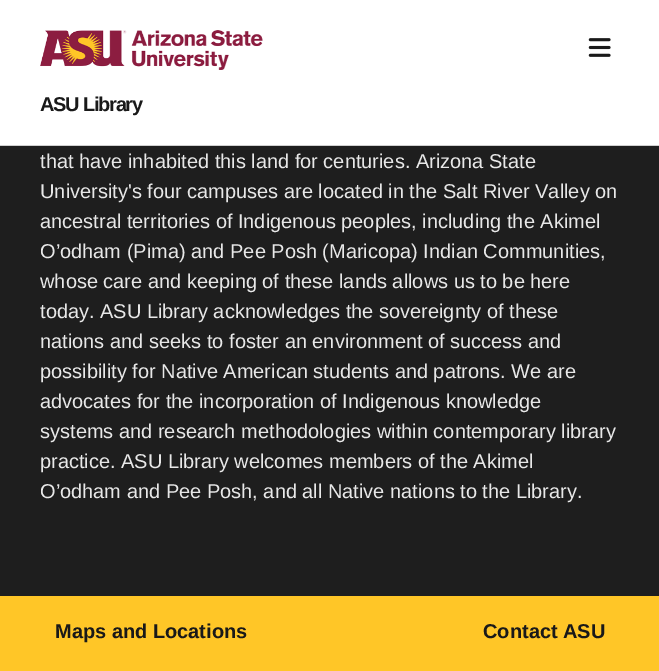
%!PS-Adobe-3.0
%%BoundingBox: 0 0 659 671
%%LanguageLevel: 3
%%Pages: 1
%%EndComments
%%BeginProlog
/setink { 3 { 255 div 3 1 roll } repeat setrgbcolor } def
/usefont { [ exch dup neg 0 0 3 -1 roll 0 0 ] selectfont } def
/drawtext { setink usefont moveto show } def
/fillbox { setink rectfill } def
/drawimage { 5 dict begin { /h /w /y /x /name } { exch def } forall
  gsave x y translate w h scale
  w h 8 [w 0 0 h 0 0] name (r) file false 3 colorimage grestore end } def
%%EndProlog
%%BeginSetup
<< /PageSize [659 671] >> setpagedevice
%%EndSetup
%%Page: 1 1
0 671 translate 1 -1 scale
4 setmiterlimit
0 0 659 671 30 30 30 fillbox
0 0 659 145 255 255 255 fillbox
0 145 659 1 208 208 208 fillbox
(assets/img1.rgb) 40 30 223 40 drawimage
(assets/img2.rgb) 588 38 23 19 drawimage
/LiberationSans-Bold 20 usefont
25 25 25 setink
40 111 moveto -1.25 0 (ASU Library) ashow
(that have inhabited this land for centuries. Arizona State) 40 168 /LiberationSans-Regular 20 232 232 232 drawtext
(University's four campuses are located in the Salt River Valley on) 40 198 /LiberationSans-Regular 20 232 232 232 drawtext
(ancestral territories of Indigenous peoples, including the Akimel) 40 228 /LiberationSans-Regular 20 232 232 232 drawtext
(O’odham \(Pima\) and Pee Posh \(Maricopa\) Indian Communities,) 40 258 /LiberationSans-Regular 20 232 232 232 drawtext
(whose care and keeping of these lands allows us to be here) 40 288 /LiberationSans-Regular 20 232 232 232 drawtext
(today. ASU Library acknowledges the sovereignty of these) 40 318 /LiberationSans-Regular 20 232 232 232 drawtext
(nations and seeks to foster an environment of success and) 40 348 /LiberationSans-Regular 20 232 232 232 drawtext
(possibility for Native American students and patrons. We are) 40 378 /LiberationSans-Regular 20 232 232 232 drawtext
(advocates for the incorporation of Indigenous knowledge) 40 408 /LiberationSans-Regular 20 232 232 232 drawtext
(systems and research methodologies within contemporary library) 40 438 /LiberationSans-Regular 20 232 232 232 drawtext
(practice. ASU Library welcomes members of the Akimel) 40 468 /LiberationSans-Regular 20 232 232 232 drawtext
(O’odham and Pee Posh, and all Native nations to the Library.) 40 498 /LiberationSans-Regular 20 232 232 232 drawtext
0 596 659 75 255 198 39 fillbox
(Maps and Locations) 55 638 /LiberationSans-Bold 20 25 25 25 drawtext
(Contact ASU) 483 638 /LiberationSans-Bold 20 25 25 25 drawtext
showpage
%%EOF
